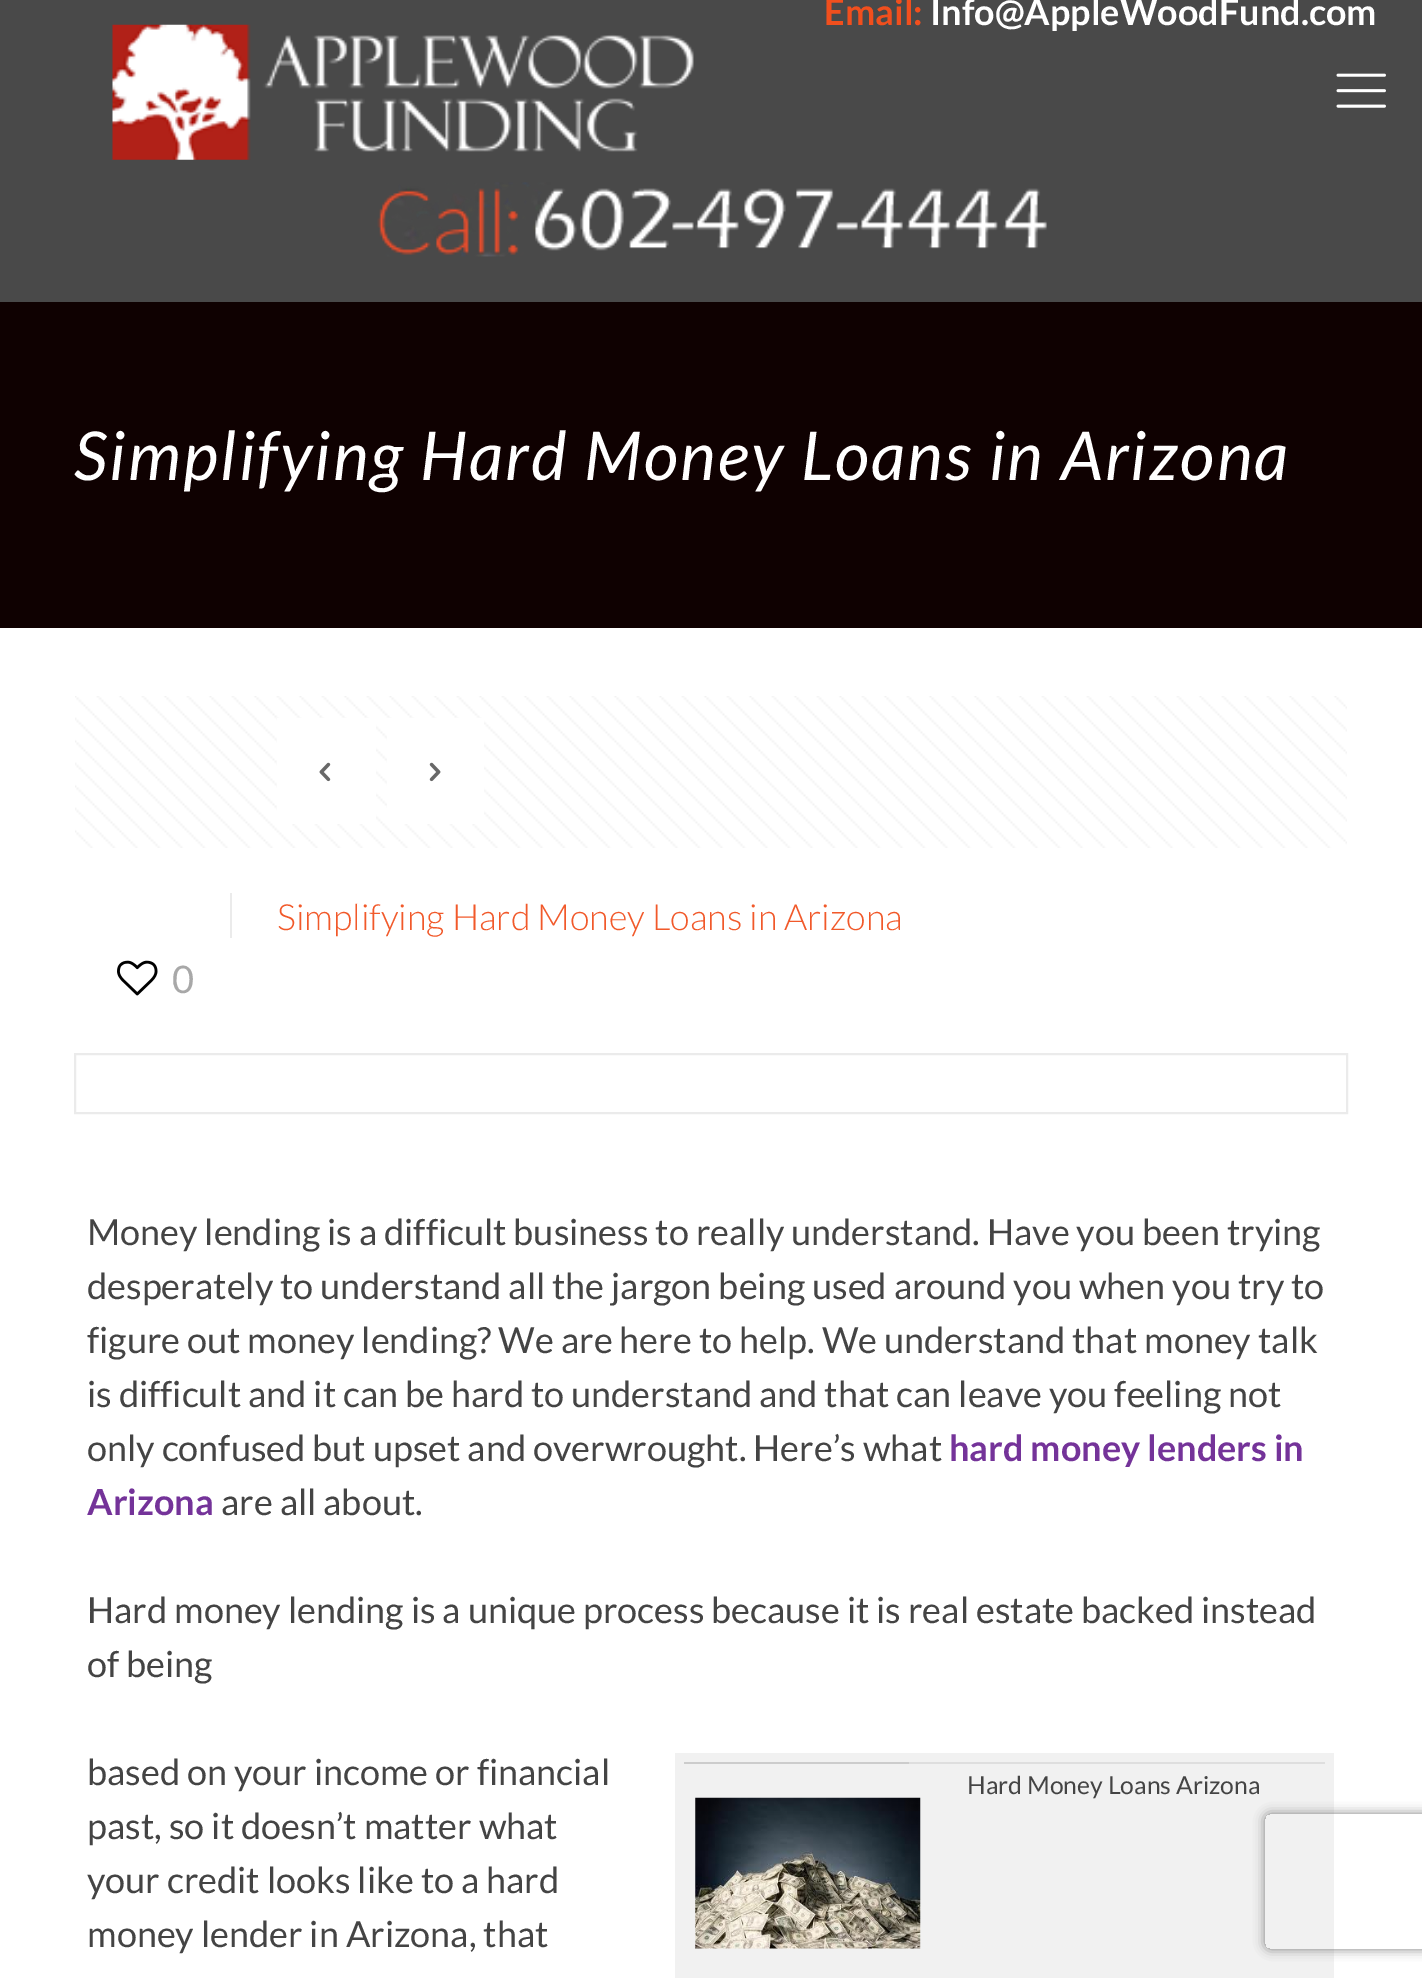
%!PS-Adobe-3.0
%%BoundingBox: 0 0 1422 1978
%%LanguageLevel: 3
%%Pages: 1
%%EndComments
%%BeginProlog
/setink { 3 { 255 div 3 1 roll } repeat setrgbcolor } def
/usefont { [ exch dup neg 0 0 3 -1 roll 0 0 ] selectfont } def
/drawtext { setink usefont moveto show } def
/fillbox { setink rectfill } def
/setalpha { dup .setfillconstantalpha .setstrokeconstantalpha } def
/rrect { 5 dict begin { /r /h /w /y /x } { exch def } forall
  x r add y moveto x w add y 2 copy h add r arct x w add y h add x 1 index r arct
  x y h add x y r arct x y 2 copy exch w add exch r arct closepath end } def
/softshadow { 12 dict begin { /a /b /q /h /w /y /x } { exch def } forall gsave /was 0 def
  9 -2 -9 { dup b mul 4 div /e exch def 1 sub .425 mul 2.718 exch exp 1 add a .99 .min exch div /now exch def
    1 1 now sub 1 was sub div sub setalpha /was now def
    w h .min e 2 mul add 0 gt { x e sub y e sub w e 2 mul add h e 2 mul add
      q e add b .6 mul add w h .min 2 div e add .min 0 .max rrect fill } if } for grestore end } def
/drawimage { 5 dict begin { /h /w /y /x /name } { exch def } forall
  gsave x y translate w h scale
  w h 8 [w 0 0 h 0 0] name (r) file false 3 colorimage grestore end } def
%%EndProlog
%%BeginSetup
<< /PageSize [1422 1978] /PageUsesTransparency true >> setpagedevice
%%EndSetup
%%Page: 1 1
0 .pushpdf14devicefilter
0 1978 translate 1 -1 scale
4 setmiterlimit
0 0 1422 1978 255 255 255 fillbox
0 302 1422 326 15 1 1 fillbox
0 0 1422 302 73 73 73 fillbox
(Email:) 824 25 /Lato-Bold 36 241 79 29 drawtext
(Info@AppleWoodFund.com) 930 25 /Lato-Bold 36 255 255 255 drawtext
(assets/img1.rgb) 377 182 670 75 drawimage
(assets/img2.rgb) 112 24 582 136 drawimage
(assets/img3.rgb) 1336 73 50 35 drawimage
/Lato-Italic 67.5 usefont
74 480 moveto 2.25 0 (Simplifying Hard Money Loans in Arizona) ashow
(assets/img4.rgb) 75 696 1272 152 drawimage
277 718 99 106 255 255 255 fillbox
(assets/img5.rgb) 319 762 12 20 drawimage
387 718 97 106 255 255 255 fillbox
(assets/img6.rgb) 429 762 12 20 drawimage
230 893 2 45 235 235 235 fillbox
(Simplifying Hard Money Loans in Arizona) 277 930 /Lato-Light 36 241 89 42 drawtext
(assets/img7.rgb) 117 960 41 36 drawimage
(0) 172 993 /Lato-Regular 38 168 168 168 drawtext
235 235 235 setink
2 setlinewidth
75 1054 1272 59 rectstroke
(Money lending is a difficult business to really understand. Have you been trying) 87 1245 /Lato-Regular 36 68 68 68 drawtext
(desperately to understand all the jargon being used around you when you try to) 87 1299 /Lato-Regular 36 68 68 68 drawtext
(figure out money lending? We are here to help. We understand that money talk) 87 1353 /Lato-Regular 36 68 68 68 drawtext
(is difficult and it can be hard to understand and that can leave you feeling not) 87 1407 /Lato-Regular 36 68 68 68 drawtext
(only confused but upset and overwrought. Here’s what) 87 1461 /Lato-Regular 36 68 68 68 drawtext
(hard money lenders in) 949 1461 /Lato-Bold 36 116 51 153 drawtext
(Arizona) 87 1515 /Lato-Bold 36 116 51 153 drawtext
(are all about.) 221 1515 /Lato-Regular 36 68 68 68 drawtext
(Hard money lending is a unique process because it is real estate backed instead) 87 1623 /Lato-Regular 36 68 68 68 drawtext
(of being) 87 1677 /Lato-Regular 36 68 68 68 drawtext
(based on your income or financial) 87 1785 /Lato-Regular 36 68 68 68 drawtext
(past, so it doesn’t matter what) 87 1839 /Lato-Regular 36 68 68 68 drawtext
(your credit looks like to a hard) 87 1893 /Lato-Regular 36 68 68 68 drawtext
(money lender in Arizona, that) 87 1947 /Lato-Regular 36 68 68 68 drawtext
675 1753 659 225 241 241 241 fillbox
684 1762 225 2 204 204 204 fillbox
(assets/img8.rgb) 695 1797 226 152 drawimage
909 1762 416 2 222 222 222 fillbox
(Hard Money Loans Arizona) 967 1794 /Lato-Regular 24.75 68 68 68 drawtext
gsave
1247 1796 moveto 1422 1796 lineto 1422 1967 lineto 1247 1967 lineto closepath 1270 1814 moveto 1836 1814 lineto 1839 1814 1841 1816 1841 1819 curveto 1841 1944 lineto 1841 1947 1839 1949 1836 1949 curveto 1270 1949 lineto 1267 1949 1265 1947 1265 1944 curveto 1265 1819 lineto 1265 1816 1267 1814 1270 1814 curveto closepath eoclip newpath
128 128 128 setink
1265 1814 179 135 5 5.5 1 softshadow
grestore
.poppdf14devicefilter showpage
%%EOF
